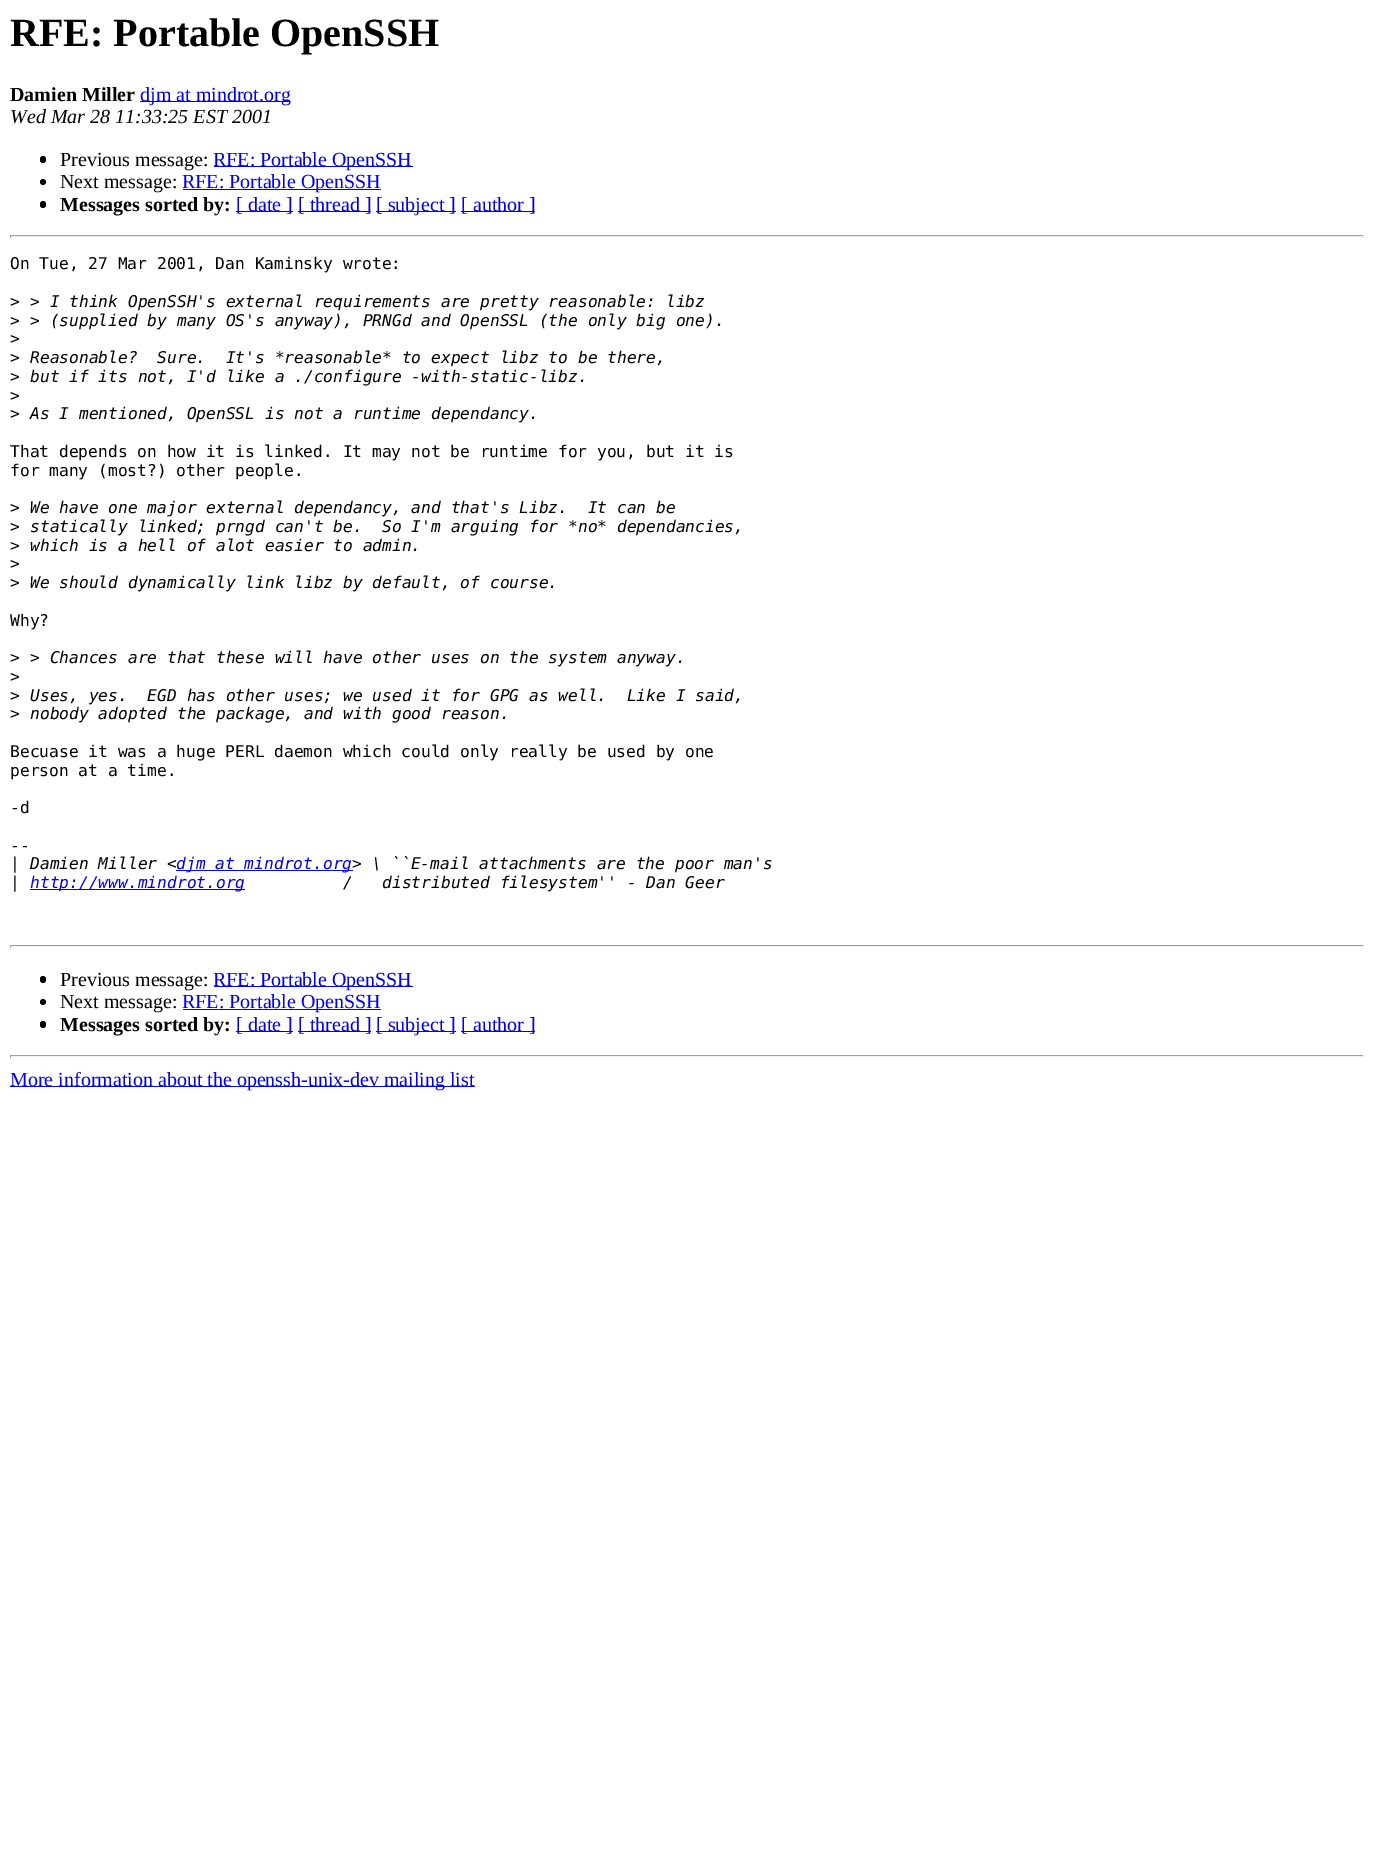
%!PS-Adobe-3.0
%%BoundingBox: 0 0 1373 1858
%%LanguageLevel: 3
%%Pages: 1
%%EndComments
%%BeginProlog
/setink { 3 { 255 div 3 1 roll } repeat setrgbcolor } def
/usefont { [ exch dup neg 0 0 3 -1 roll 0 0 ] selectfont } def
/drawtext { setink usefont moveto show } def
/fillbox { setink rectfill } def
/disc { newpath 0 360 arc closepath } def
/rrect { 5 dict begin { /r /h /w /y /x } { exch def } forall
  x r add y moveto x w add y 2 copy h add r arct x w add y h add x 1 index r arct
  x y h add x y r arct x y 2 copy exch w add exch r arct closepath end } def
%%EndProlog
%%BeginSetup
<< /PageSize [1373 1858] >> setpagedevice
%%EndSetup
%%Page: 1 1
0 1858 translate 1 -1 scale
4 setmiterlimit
0 0 1373 1858 255 255 255 fillbox
(RFE: Portable OpenSSH) 10 46 /LiberationSerif-Bold 40 0 0 0 drawtext
(Damien Miller) 10 101 /LiberationSerif-Bold 20 0 0 0 drawtext
140 101 150 1 0 0 238 fillbox
(djm at mindrot.org) 140 101 /LiberationSerif-Regular 20 0 0 238 drawtext
(Wed Mar 28 11:33:25 EST 2001) 10 123 /LiberationSerif-Italic 20 0 0 0 drawtext
40 156 6 7 3 rrect fill
(Previous message:) 60 166 /LiberationSerif-Regular 20 0 0 0 drawtext
214 166 199 1 0 0 238 fillbox
(RFE: Portable OpenSSH) 213 166 /LiberationSerif-Regular 20 0 0 238 drawtext
0 0 0 setink
43 182 3 disc fill
(Next message:) 60 188 /LiberationSerif-Regular 20 0 0 0 drawtext
183 189 198 1 0 0 238 fillbox
(RFE: Portable OpenSSH) 182 188 /LiberationSerif-Regular 20 0 0 238 drawtext
0 0 0 setink
40 201 6 7 3 rrect fill
(Messages sorted by:) 60 211 /LiberationSerif-Bold 20 0 0 0 drawtext
236 211 57 1 0 0 238 fillbox
([ date ]) 236 211 /LiberationSerif-Regular 20 0 0 238 drawtext
298 211 73 1 0 0 238 fillbox
([ thread ]) 298 211 /LiberationSerif-Regular 20 0 0 238 drawtext
376 211 80 1 0 0 238 fillbox
([ subject ]) 376 211 /LiberationSerif-Regular 20 0 0 238 drawtext
461 211 74 1 0 0 238 fillbox
([ author ]) 461 211 /LiberationSerif-Regular 20 0 0 238 drawtext
10 235 1354 1 159 159 159 fillbox
1363 235 1 3 238 238 238 fillbox
10 236 1354 1 238 238 238 fillbox
10 235 1 3 159 159 159 fillbox
(On Tue, 27 Mar 2001, Dan Kaminsky wrote:) 10 269 /DejaVuSansMono-Regular 16.25 0 0 0 drawtext
(>) 10 307 /DejaVuSansMono-Regular 16.25 0 0 0 drawtext
(> I think OpenSSH's external requirements are pretty reasonable: libz) 30 307 /DejaVuSansMono-Italic 16.25 0 0 0 drawtext
(>) 10 326 /DejaVuSansMono-Regular 16.25 0 0 0 drawtext
(> \(supplied by many OS's anyway\), PRNGd and OpenSSL \(the only big one\).) 30 326 /DejaVuSansMono-Italic 16.25 0 0 0 drawtext
(>) 10 344 /DejaVuSansMono-Regular 16.25 0 0 0 drawtext
(>) 10 363 /DejaVuSansMono-Regular 16.25 0 0 0 drawtext
(Reasonable?  Sure.  It's *reasonable* to expect libz to be there,) 30 363 /DejaVuSansMono-Italic 16.25 0 0 0 drawtext
(>) 10 382 /DejaVuSansMono-Regular 16.25 0 0 0 drawtext
(but if its not, I'd like a ./configure -with-static-libz.) 30 382 /DejaVuSansMono-Italic 16.25 0 0 0 drawtext
(>) 10 401 /DejaVuSansMono-Regular 16.25 0 0 0 drawtext
(>) 10 419 /DejaVuSansMono-Regular 16.25 0 0 0 drawtext
(As I mentioned, OpenSSL is not a runtime dependancy.) 30 419 /DejaVuSansMono-Italic 16.25 0 0 0 drawtext
(That depends on how it is linked. It may not be runtime for you, but it is) 10 457 /DejaVuSansMono-Regular 16.25 0 0 0 drawtext
(for many \(most?\) other people.) 10 476 /DejaVuSansMono-Regular 16.25 0 0 0 drawtext
(>) 10 513 /DejaVuSansMono-Regular 16.25 0 0 0 drawtext
(We have one major external dependancy, and that's Libz.  It can be) 30 513 /DejaVuSansMono-Italic 16.25 0 0 0 drawtext
(>) 10 532 /DejaVuSansMono-Regular 16.25 0 0 0 drawtext
(statically linked; prngd can't be.  So I'm arguing for *no* dependancies,) 30 532 /DejaVuSansMono-Italic 16.25 0 0 0 drawtext
(>) 10 551 /DejaVuSansMono-Regular 16.25 0 0 0 drawtext
(which is a hell of alot easier to admin.) 30 551 /DejaVuSansMono-Italic 16.25 0 0 0 drawtext
(>) 10 569 /DejaVuSansMono-Regular 16.25 0 0 0 drawtext
(>) 10 588 /DejaVuSansMono-Regular 16.25 0 0 0 drawtext
(We should dynamically link libz by default, of course.) 30 588 /DejaVuSansMono-Italic 16.25 0 0 0 drawtext
(Why?) 10 626 /DejaVuSansMono-Regular 16.25 0 0 0 drawtext
(>) 10 663 /DejaVuSansMono-Regular 16.25 0 0 0 drawtext
(> Chances are that these will have other uses on the system anyway.) 30 663 /DejaVuSansMono-Italic 16.25 0 0 0 drawtext
(>) 10 682 /DejaVuSansMono-Regular 16.25 0 0 0 drawtext
(>) 10 701 /DejaVuSansMono-Regular 16.25 0 0 0 drawtext
(Uses, yes.  EGD has other uses; we used it for GPG as well.  Like I said,) 30 701 /DejaVuSansMono-Italic 16.25 0 0 0 drawtext
(>) 10 719 /DejaVuSansMono-Regular 16.25 0 0 0 drawtext
(nobody adopted the package, and with good reason.) 30 719 /DejaVuSansMono-Italic 16.25 0 0 0 drawtext
(Becuase it was a huge PERL daemon which could only really be used by one) 10 757 /DejaVuSansMono-Regular 16.25 0 0 0 drawtext
(person at a time.) 10 776 /DejaVuSansMono-Regular 16.25 0 0 0 drawtext
(-d) 10 813 /DejaVuSansMono-Regular 16.25 0 0 0 drawtext
(--) 10 851 /DejaVuSansMono-Regular 16.25 0 0 0 drawtext
(|) 10 869 /DejaVuSansMono-Regular 16.25 0 0 0 drawtext
(Damien Miller <) 30 869 /DejaVuSansMono-Italic 16.25 0 0 0 drawtext
176 870 177 1 0 0 238 fillbox
(djm at mindrot.org) 176 869 /DejaVuSansMono-Italic 16.25 0 0 238 drawtext
(> \\ ``E-mail attachments are the poor man's) 352 869 /DejaVuSansMono-Italic 16.25 0 0 0 drawtext
(|) 10 888 /DejaVuSansMono-Regular 16.25 0 0 0 drawtext
30 889 215 1 0 0 238 fillbox
(http://www.mindrot.org) 30 888 /DejaVuSansMono-Italic 16.25 0 0 238 drawtext
(/   distributed filesystem'' - Dan Geer) 343 888 /DejaVuSansMono-Italic 16.25 0 0 0 drawtext
10 945 1354 1 159 159 159 fillbox
1363 945 1 3 238 238 238 fillbox
10 946 1354 1 238 238 238 fillbox
10 945 1 3 159 159 159 fillbox
0 0 0 setink
40 976 6 7 3 rrect fill
(Previous message:) 60 986 /LiberationSerif-Regular 20 0 0 0 drawtext
214 986 199 1 0 0 238 fillbox
(RFE: Portable OpenSSH) 213 986 /LiberationSerif-Regular 20 0 0 238 drawtext
0 0 0 setink
43 1002 3 disc fill
(Next message:) 60 1008 /LiberationSerif-Regular 20 0 0 0 drawtext
183 1009 198 1 0 0 238 fillbox
(RFE: Portable OpenSSH) 182 1008 /LiberationSerif-Regular 20 0 0 238 drawtext
0 0 0 setink
40 1021 6 7 3 rrect fill
(Messages sorted by:) 60 1031 /LiberationSerif-Bold 20 0 0 0 drawtext
236 1031 57 1 0 0 238 fillbox
([ date ]) 236 1031 /LiberationSerif-Regular 20 0 0 238 drawtext
298 1031 73 1 0 0 238 fillbox
([ thread ]) 298 1031 /LiberationSerif-Regular 20 0 0 238 drawtext
376 1031 80 1 0 0 238 fillbox
([ subject ]) 376 1031 /LiberationSerif-Regular 20 0 0 238 drawtext
461 1031 74 1 0 0 238 fillbox
([ author ]) 461 1031 /LiberationSerif-Regular 20 0 0 238 drawtext
10 1055 1354 1 159 159 159 fillbox
1363 1055 1 3 238 238 238 fillbox
10 1056 1354 1 238 238 238 fillbox
10 1055 1 3 159 159 159 fillbox
10 1086 465 1 0 0 238 fillbox
(More information about the openssh-unix-dev mailing list) 10 1086 /LiberationSerif-Regular 20 0 0 238 drawtext
showpage
%%EOF
